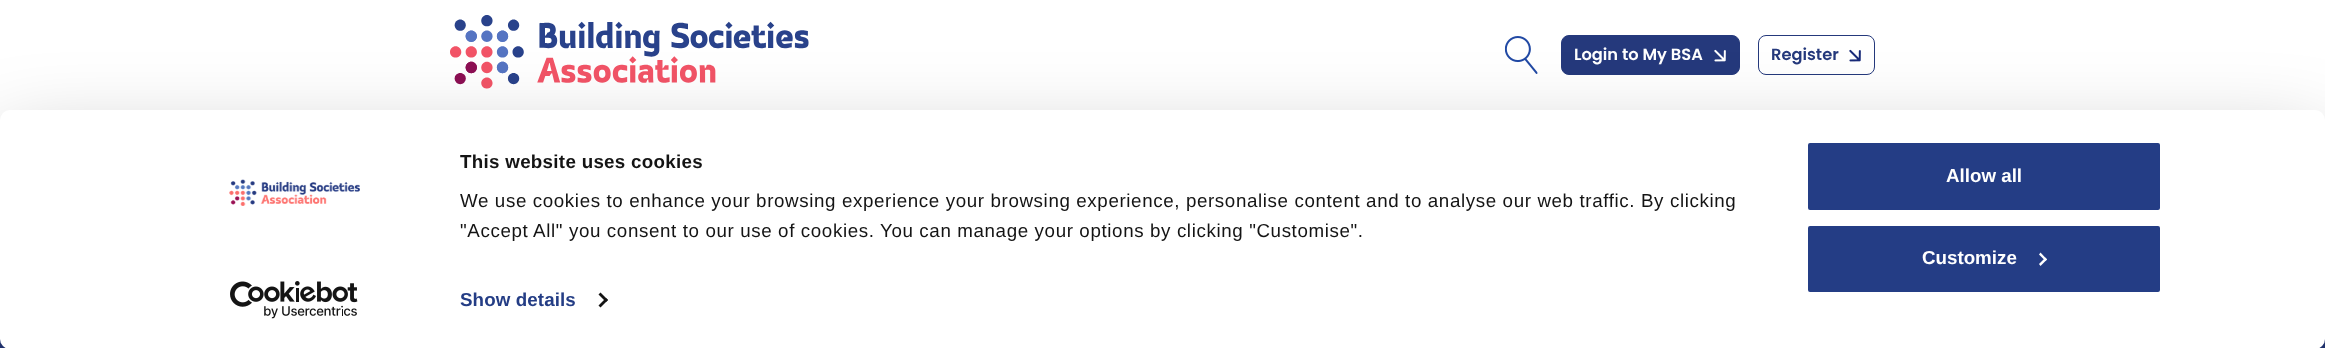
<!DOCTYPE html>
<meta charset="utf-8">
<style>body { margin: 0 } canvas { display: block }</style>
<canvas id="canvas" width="2325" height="348"></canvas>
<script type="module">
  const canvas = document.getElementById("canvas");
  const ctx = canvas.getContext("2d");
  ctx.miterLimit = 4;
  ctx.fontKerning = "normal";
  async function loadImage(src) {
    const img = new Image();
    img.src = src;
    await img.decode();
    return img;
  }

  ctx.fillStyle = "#ffffff";
  ctx.fillRect(0, 0, 2325, 348);
  ctx.drawImage(await loadImage("img1.png"), 450, 15, 359, 74);
  ctx.drawImage(await loadImage("img2.png"), 1504, 36, 34, 38);
  ctx.fillStyle = "#25397c";
  ctx.beginPath();
  ctx.roundRect(1561.5, 35.5, 178, 39, 7.5);
  ctx.fill();
  ctx.strokeStyle = "#25397c";
  ctx.stroke();
  ctx.font = "600 16.25px Poppins";
  ctx.fillStyle = "#ffffff";
  ctx.fillText("Login to My BSA", 1574, 60);
  ctx.drawImage(await loadImage("img3.png"), 1714, 49, 12, 13);
  ctx.beginPath();
  ctx.roundRect(1758.5, 35.5, 116, 39, 7.5);
  ctx.stroke();
  ctx.fillStyle = "#25397c";
  ctx.fillText("Register", 1771, 60);
  ctx.drawImage(await loadImage("img4.png"), 1849, 49, 12, 13);
  ctx.fillRect(0, 339, 2325, 9);
  ctx.fillStyle = "rgba(0, 0, 0, 0.3)";
  ctx.filter = "blur(44px)";
  ctx.beginPath();
  ctx.roundRect(0, 148, 2325, 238, 10);
  ctx.fill();
  ctx.filter = "none";
  ctx.fillStyle = "#ffffff";
  ctx.beginPath();
  ctx.roundRect(0, 110, 2325, 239, 10);
  ctx.fill();
  ctx.drawImage(await loadImage("img5.png"), 229, 179, 131, 27);
  ctx.drawImage(await loadImage("img6.png"), 230, 281, 128, 38);
  ctx.letterSpacing = "0.3px";
  ctx.font = "bold 18.75px Liberation Sans";
  ctx.fillStyle = "#141414";
  ctx.fillText("This website uses cookies", 460, 168);
  ctx.letterSpacing = "0.62px";
  ctx.font = "18.75px Liberation Sans";
  ctx.fillText("We use cookies to enhance your browsing experience your browsing experience, personalise content and to analyse our web traffic. By clicking", 460, 207);
  ctx.fillText("\"Accept All\" you consent to our use of cookies. You can manage your options by clicking \"Customise\".", 460, 237);
  ctx.letterSpacing = "0.1px";
  ctx.font = "bold 18.75px Liberation Sans";
  ctx.fillStyle = "#243d85";
  ctx.fillText("Show details", 460, 306);
  ctx.fillStyle = "#141414";
  ctx.beginPath();
  ctx.moveTo(600.5, 292.5);
  ctx.lineTo(608, 300);
  ctx.lineTo(606, 302);
  ctx.lineTo(598.5, 294.5);
  ctx.closePath();
  ctx.fill();
  ctx.beginPath();
  ctx.moveTo(606, 298);
  ctx.lineTo(608, 300);
  ctx.lineTo(600.5, 307.5);
  ctx.lineTo(598.5, 305.5);
  ctx.closePath();
  ctx.fill();
  ctx.fillStyle = "#243d85";
  ctx.beginPath();
  ctx.roundRect(1806.5, 141.5, 355, 70, 3.5);
  ctx.fill();
  ctx.strokeStyle = "#ffffff";
  ctx.lineWidth = 3;
  ctx.stroke();
  ctx.letterSpacing = "0px";
  ctx.fillStyle = "#ffffff";
  ctx.fillText("Allow all", 1946, 182);
  ctx.fillStyle = "#243d85";
  ctx.beginPath();
  ctx.roundRect(1806.5, 224.5, 355, 69, 3.5);
  ctx.fill();
  ctx.stroke();
  ctx.fillStyle = "#ffffff";
  ctx.fillText("Customize", 1922, 264);
  ctx.beginPath();
  ctx.moveTo(2040.5, 252.5);
  ctx.lineTo(2047, 259.5);
  ctx.lineTo(2045.5, 261);
  ctx.lineTo(2039, 254.5);
  ctx.closePath();
  ctx.fill();
  ctx.beginPath();
  ctx.moveTo(2045.5, 257.5);
  ctx.lineTo(2047, 259.5);
  ctx.lineTo(2040.5, 266);
  ctx.lineTo(2039, 264);
  ctx.closePath();
  ctx.fill();
</script>
